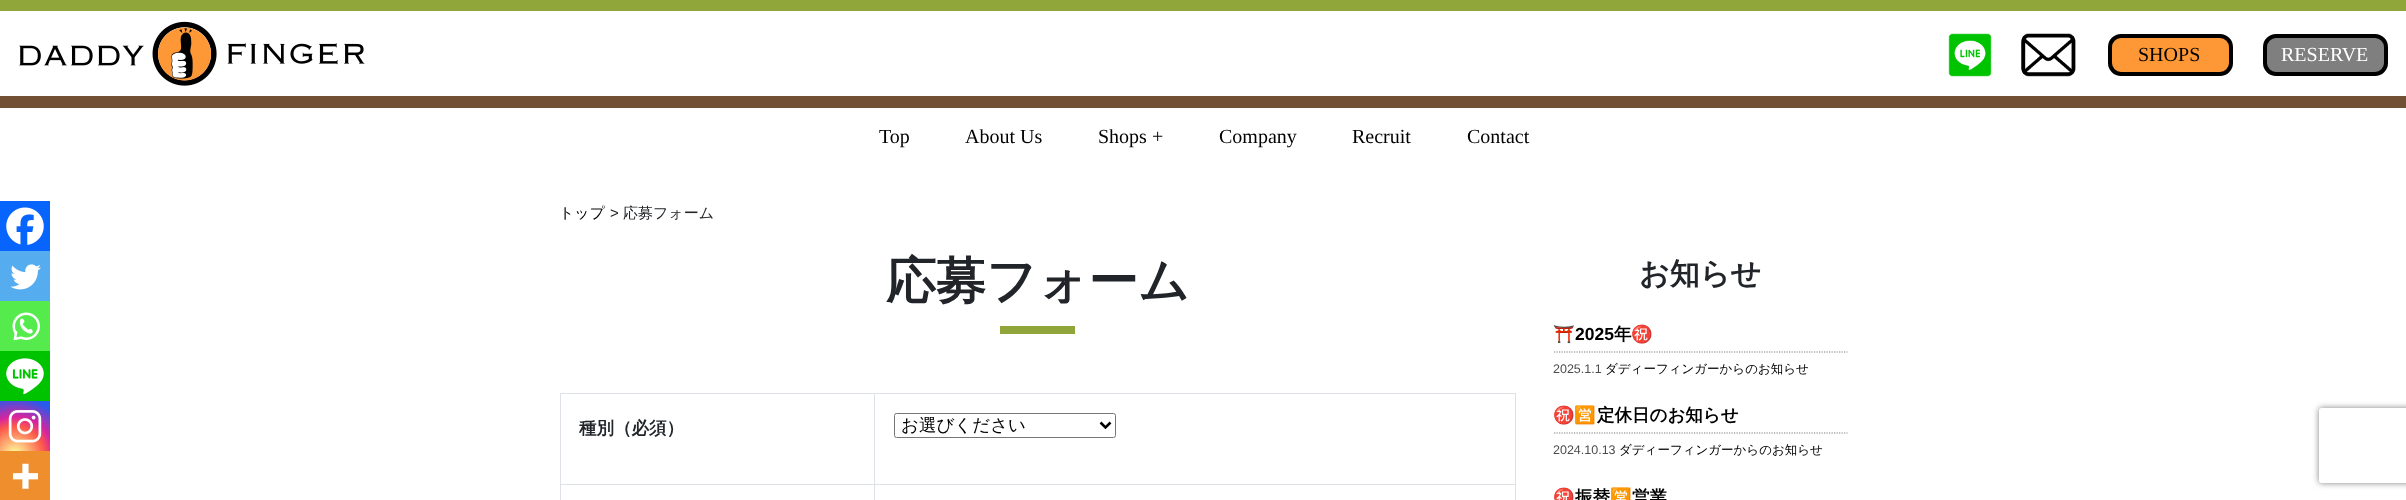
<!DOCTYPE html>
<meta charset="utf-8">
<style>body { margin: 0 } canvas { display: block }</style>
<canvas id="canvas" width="2406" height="500"></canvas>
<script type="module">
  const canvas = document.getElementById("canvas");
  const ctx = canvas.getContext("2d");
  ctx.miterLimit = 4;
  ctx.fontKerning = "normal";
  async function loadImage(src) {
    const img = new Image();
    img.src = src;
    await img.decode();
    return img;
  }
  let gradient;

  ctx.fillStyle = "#ffffff";
  ctx.fillRect(0, 0, 2406, 500);
  ctx.fillStyle = "#90a53a";
  ctx.fillRect(0, 0, 2406, 11);
  ctx.fillStyle = "#715034";
  ctx.fillRect(0, 96, 2406, 12);
  ctx.drawImage(await loadImage("img1.png"), 19, 21, 346, 65);
  ctx.drawImage(await loadImage("img2.png"), 1948, 33, 44, 44);
  ctx.drawImage(await loadImage("img3.png"), 2021, 33, 55, 44);
  ctx.fillStyle = "#fe9836";
  ctx.beginPath();
  ctx.roundRect(2110, 36, 121, 38, 11);
  ctx.fill();
  ctx.strokeStyle = "#000000";
  ctx.lineWidth = 4;
  ctx.stroke();
  ctx.font = "20px Liberation Serif";
  ctx.fillStyle = "#000000";
  ctx.fillText("SHOPS", 2138, 61);
  ctx.fillStyle = "#7f7f7f";
  ctx.beginPath();
  ctx.roundRect(2265, 36, 121, 38, 11);
  ctx.fill();
  ctx.stroke();
  ctx.fillStyle = "#ffffff";
  ctx.fillText("RESERVE", 2281, 61);
  ctx.fillStyle = "#000000";
  ctx.fillText("Top", 879, 143);
  ctx.fillText("About Us", 965, 143);
  ctx.fillText("Shops +", 1098, 143);
  ctx.fillText("Company", 1219, 143);
  ctx.fillText("Recruit", 1352, 143);
  ctx.fillText("Contact", 1467, 143);
  ctx.fillStyle = "#0765fe";
  ctx.fillRect(0, 201, 50, 50);
  ctx.drawImage(await loadImage("img4.png"), 6, 207, 38, 38);
  ctx.fillStyle = "#55acee";
  ctx.fillRect(0, 251, 50, 50);
  ctx.drawImage(await loadImage("img5.png"), 10, 264, 31, 26);
  ctx.fillStyle = "#55eb4c";
  ctx.fillRect(0, 301, 50, 50);
  ctx.drawImage(await loadImage("img6.png"), 12, 312, 28, 29);
  ctx.fillStyle = "#00c300";
  ctx.fillRect(0, 351, 50, 50);
  ctx.drawImage(await loadImage("img7.png"), 6, 358, 38, 37);
  gradient = ctx.createRadialGradient(15, 455, 0, 15, 455, 64);
  gradient.addColorStop(0, "#fdf497");
  gradient.addColorStop(0.05, "#fdf497");
  gradient.addColorStop(0.45, "#fd5949");
  gradient.addColorStop(0.6, "#d6249f");
  gradient.addColorStop(0.9, "#285aeb");
  ctx.fillStyle = gradient;
  ctx.fillRect(0, 401, 50, 50);
  ctx.drawImage(await loadImage("img8.png"), 8, 410, 34, 33);
  ctx.fillStyle = "#ee8e2d";
  ctx.fillRect(0, 451, 50, 49);
  ctx.drawImage(await loadImage("img9.png"), 12, 463, 26, 26);
  ctx.font = "500 15px WenQuanYi Zen Hei";
  ctx.fillStyle = "#000000";
  ctx.fillText("トップ", 559, 218);
  ctx.font = "15px Liberation Sans";
  ctx.fillStyle = "#212529";
  ctx.fillText(">", 610, 218);
  ctx.font = "500 15px WenQuanYi Zen Hei";
  ctx.fillText("応募フォーム", 623, 218);
  ctx.font = "bold 50px WenQuanYi Zen Hei";
  ctx.fillText("応募フォーム", 886, 298);
  ctx.fillStyle = "#90a53a";
  ctx.fillRect(1000, 326, 75, 8);
  ctx.fillStyle = "#dee2e6";
  ctx.fillRect(874, 393, 642, 1);
  ctx.fillRect(874, 484, 642, 1);
  ctx.fillRect(874, 484, 1, 16);
  ctx.fillRect(560, 484, 315, 1);
  ctx.fillRect(874, 393, 1, 92);
  ctx.fillRect(560, 393, 315, 1);
  ctx.fillRect(560, 484, 1, 16);
  ctx.fillRect(560, 393, 1, 92);
  ctx.font = "bold 17.5px WenQuanYi Zen Hei";
  ctx.fillStyle = "#212529";
  ctx.fillText("種別（必須）", 579, 434);
  ctx.fillStyle = "#dee2e6";
  ctx.fillRect(1515, 484, 1, 16);
  ctx.fillRect(1515, 393, 1, 92);
  ctx.beginPath();
  ctx.roundRect(894.5, 413.5, 221, 24, 2);
  ctx.strokeStyle = "#767676";
  ctx.lineWidth = 1;
  ctx.stroke();
  ctx.beginPath();
  ctx.moveTo(1100.5, 422.5);
  ctx.lineTo(1105.5, 427.5);
  ctx.lineTo(1110.5, 422.5);
  ctx.strokeStyle = "#000000";
  ctx.lineWidth = 2.5;
  ctx.stroke();
  ctx.font = "500 17.5px WenQuanYi Zen Hei";
  ctx.fillStyle = "#000000";
  ctx.fillText("お選びください", 901, 431);
  ctx.font = "bold 30px WenQuanYi Zen Hei";
  ctx.fillStyle = "#212529";
  ctx.fillText("お知らせ", 1639, 284);
  ctx.beginPath();
  ctx.moveTo(1554, 352);
  ctx.lineTo(1847.5, 352);
  ctx.strokeStyle = "#808080";
  ctx.lineWidth = 1.2;
  ctx.setLineDash([1.25, 1.25]);
  ctx.stroke();
  ctx.font = "bold 17.5px Noto Color Emoji";
  ctx.fillStyle = "#000000";
  ctx.fillText("⛩️", 1553, 340);
  ctx.font = "bold 17.5px Liberation Sans";
  ctx.fillText("2025", 1575, 340);
  ctx.font = "bold 17.5px WenQuanYi Zen Hei";
  ctx.fillText("年", 1614, 340);
  ctx.font = "bold 17.5px Noto Color Emoji";
  ctx.fillText("㊗️", 1631, 340);
  ctx.font = "12.5px Liberation Sans";
  ctx.fillStyle = "#4d4d4d";
  ctx.fillText("2025.1.1", 1553, 373);
  ctx.font = "500 12.5px WenQuanYi Zen Hei";
  ctx.fillStyle = "#000000";
  ctx.fillText("ダディーフィンガーからのお知らせ", 1605, 373);
  ctx.beginPath();
  ctx.moveTo(1554, 433);
  ctx.lineTo(1847.5, 433);
  ctx.stroke();
  ctx.font = "bold 17.5px Noto Color Emoji";
  ctx.fillText("㊗️🈺", 1553, 421);
  ctx.font = "bold 17.5px WenQuanYi Zen Hei";
  ctx.fillText("定休日のお知らせ", 1597, 421);
  ctx.font = "12.5px Liberation Sans";
  ctx.fillStyle = "#4d4d4d";
  ctx.fillText("2024.10.13", 1553, 454);
  ctx.font = "500 12.5px WenQuanYi Zen Hei";
  ctx.fillStyle = "#000000";
  ctx.fillText("ダディーフィンガーからのお知らせ", 1619, 454);
  ctx.font = "bold 17.5px Noto Color Emoji";
  ctx.fillText("㊗️", 1553, 503);
  ctx.font = "bold 17.5px WenQuanYi Zen Hei";
  ctx.fillText("振替", 1575, 503);
  ctx.font = "bold 17.5px Noto Color Emoji";
  ctx.fillText("🈺", 1610, 503);
  ctx.font = "bold 17.5px WenQuanYi Zen Hei";
  ctx.fillText("営業", 1632, 503);
  ctx.save();
  ctx.beginPath();
  ctx.moveTo(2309, 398);
  ctx.lineTo(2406, 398);
  ctx.lineTo(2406, 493);
  ctx.lineTo(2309, 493);
  ctx.closePath();
  ctx.moveTo(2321.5, 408);
  ctx.lineTo(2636.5, 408);
  ctx.bezierCurveTo(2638, 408, 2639, 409, 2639, 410.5);
  ctx.lineTo(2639, 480.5);
  ctx.bezierCurveTo(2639, 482, 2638, 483, 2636.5, 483);
  ctx.lineTo(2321.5, 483);
  ctx.bezierCurveTo(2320, 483, 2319, 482, 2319, 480.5);
  ctx.lineTo(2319, 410.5);
  ctx.bezierCurveTo(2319, 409, 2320, 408, 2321.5, 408);
  ctx.closePath();
  ctx.clip("evenodd");
  ctx.fillStyle = "#808080";
  ctx.filter = "blur(3px)";
  ctx.beginPath();
  ctx.roundRect(2319, 408, 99, 75, 2.5);
  ctx.fill();
  ctx.filter = "none";
  ctx.restore();
</script>
